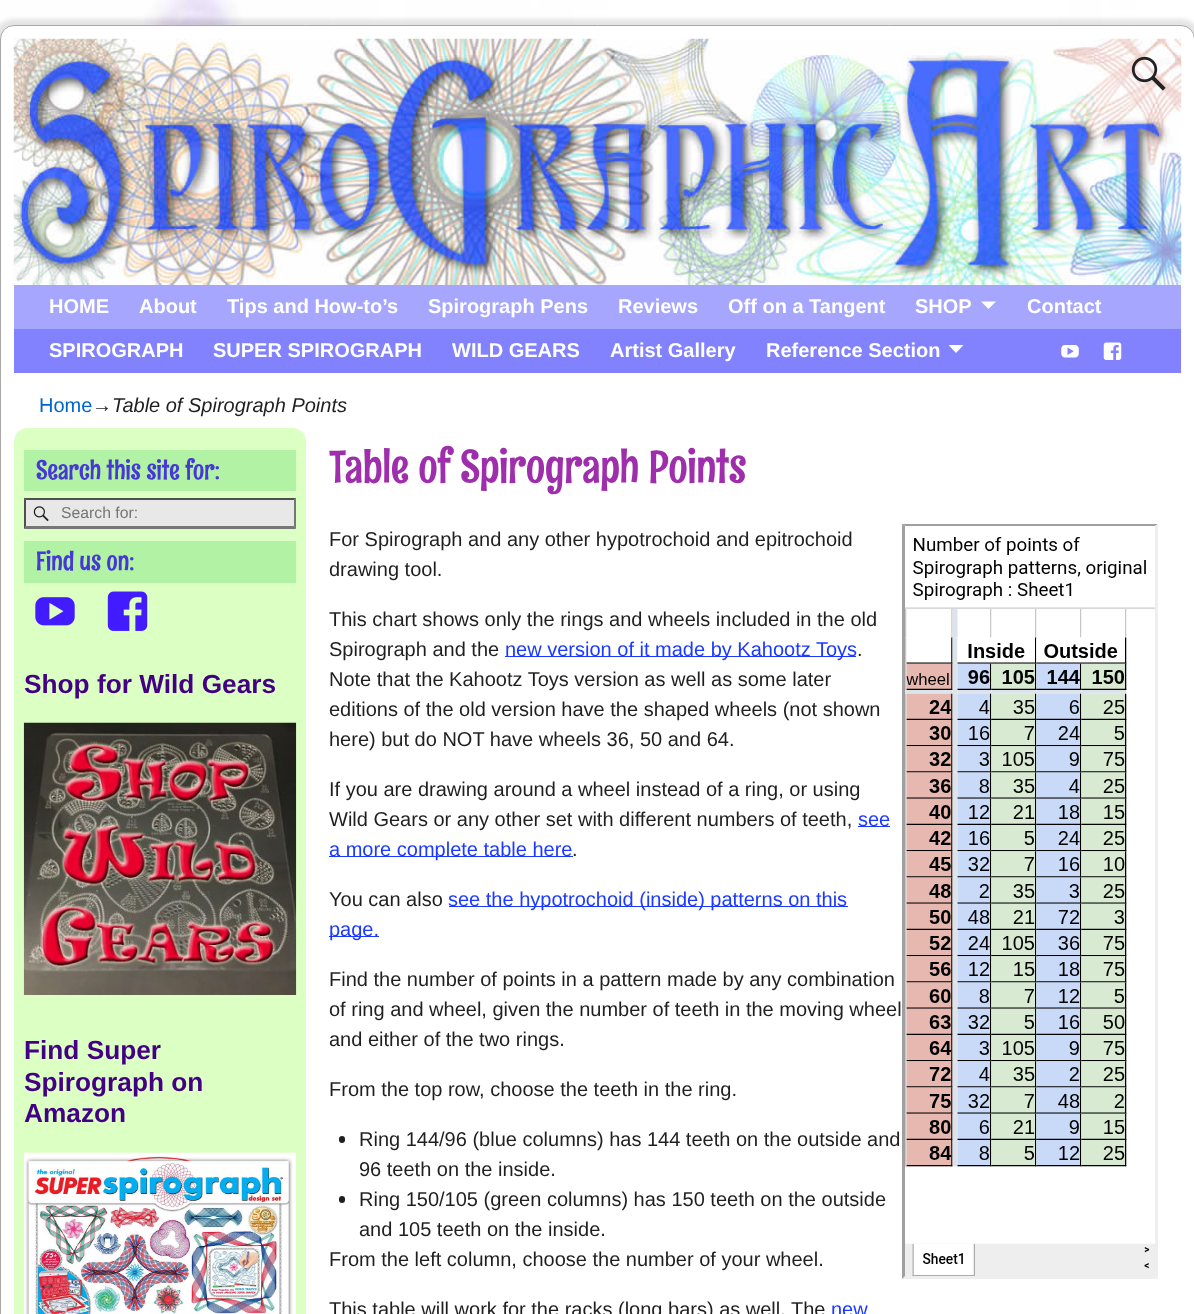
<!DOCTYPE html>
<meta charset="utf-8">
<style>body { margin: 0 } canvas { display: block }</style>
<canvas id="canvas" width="1194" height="1314"></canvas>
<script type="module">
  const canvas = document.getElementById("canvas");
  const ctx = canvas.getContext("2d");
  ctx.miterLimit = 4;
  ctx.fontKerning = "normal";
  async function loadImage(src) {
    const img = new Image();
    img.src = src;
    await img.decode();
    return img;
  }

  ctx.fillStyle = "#ffffff";
  ctx.fillRect(0, 0, 1194, 1314);
  ctx.drawImage(await loadImage("img1.png"), 0, 0, 1194, 39);
  ctx.fillStyle = "rgba(0, 0, 0, 0.1)";
  ctx.filter = "blur(2px)";
  ctx.beginPath();
  ctx.roundRect(-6, 19, 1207, 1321, 20);
  ctx.fill();
  ctx.filter = "none";
  ctx.fillStyle = "#ffffff";
  ctx.beginPath();
  ctx.roundRect(0.5, 25.5, 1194, 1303, 13.5);
  ctx.fill();
  ctx.strokeStyle = "#a8a8a8";
  ctx.stroke();
  ctx.drawImage(await loadImage("img2.png"), 13, 38, 1169, 247);
  ctx.drawImage(await loadImage("img3.png"), 1131, 56, 35, 35);
  ctx.fillStyle = "#a6a6ff";
  ctx.fillRect(14, 285, 1167, 44);
  ctx.font = "bold 20px Liberation Sans";
  ctx.fillStyle = "#ffffff";
  ctx.fillText("HOME", 49, 313);
  ctx.fillText("About", 139, 313);
  ctx.fillText("Tips and How-to’s", 227, 313);
  ctx.fillText("Spirograph Pens", 428, 313);
  ctx.fillText("Reviews", 618, 313);
  ctx.fillText("Off on a Tangent", 728, 313);
  ctx.fillText("SHOP", 915, 313);
  ctx.beginPath();
  ctx.moveTo(981, 301.5);
  ctx.lineTo(996, 301.5);
  ctx.lineTo(988.5, 309);
  ctx.closePath();
  ctx.fill();
  ctx.fillText("Contact", 1027, 313);
  ctx.fillStyle = "#8282ff";
  ctx.fillRect(14, 329, 1167, 44);
  ctx.fillStyle = "#ffffff";
  ctx.fillText("SPIROGRAPH", 49, 357);
  ctx.fillText("SUPER SPIROGRAPH", 213, 357);
  ctx.fillText("WILD GEARS", 452, 357);
  ctx.fillText("Artist Gallery", 610, 357);
  ctx.fillText("Reference Section", 766, 357);
  ctx.beginPath();
  ctx.moveTo(948.5, 345);
  ctx.lineTo(963.5, 345);
  ctx.lineTo(956, 353);
  ctx.closePath();
  ctx.fill();
  ctx.drawImage(await loadImage("img4.png"), 1061, 345, 18, 13);
  ctx.drawImage(await loadImage("img5.png"), 1103, 342, 19, 18);
  ctx.font = "20px Liberation Sans";
  ctx.fillStyle = "#0066cc";
  ctx.fillText("Home", 39, 412);
  ctx.fillStyle = "#1f1f1f";
  ctx.fillText("→", 92, 412);
  ctx.font = "italic 20px Liberation Sans";
  ctx.fillText("Table of Spirograph Points", 112, 412);
  ctx.fillStyle = "#dcffc4";
  ctx.beginPath();
  ctx.roundRect(14, 428, 292, 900, 14);
  ctx.fill();
  ctx.fillStyle = "#b1f2a5";
  ctx.fillRect(24, 450, 272, 41);
  ctx.font = "26.25px Rum Raisin";
  ctx.fillStyle = "#4738d6";
  ctx.fillText("Search this site for:", 36, 479);
  ctx.fillStyle = "#e8e8e8";
  ctx.fillRect(24, 498, 272, 31);
  ctx.drawImage(await loadImage("img6.png"), 33, 506, 16, 16);
  ctx.fillStyle = "#4f4f4f";
  ctx.beginPath();
  ctx.moveTo(24, 498);
  ctx.lineTo(296, 498);
  ctx.lineTo(294, 500);
  ctx.lineTo(26, 500);
  ctx.closePath();
  ctx.fill();
  ctx.fillStyle = "#767676";
  ctx.beginPath();
  ctx.moveTo(296, 497.5);
  ctx.lineTo(296, 529);
  ctx.lineTo(294, 526);
  ctx.lineTo(294, 500);
  ctx.closePath();
  ctx.fill();
  ctx.beginPath();
  ctx.moveTo(296, 529);
  ctx.lineTo(24, 529);
  ctx.lineTo(26, 526);
  ctx.lineTo(294, 526);
  ctx.closePath();
  ctx.fill();
  ctx.fillStyle = "#4f4f4f";
  ctx.beginPath();
  ctx.moveTo(24, 529);
  ctx.lineTo(24, 497.5);
  ctx.lineTo(26, 500);
  ctx.lineTo(26, 526);
  ctx.closePath();
  ctx.fill();
  ctx.font = "15.75px Liberation Sans";
  ctx.fillStyle = "#757575";
  ctx.fillText("Search for:", 61, 518);
  ctx.fillStyle = "#b1f2a5";
  ctx.fillRect(24, 541, 272, 42);
  ctx.font = "26.25px Rum Raisin";
  ctx.fillStyle = "#4738d6";
  ctx.fillText("Find us on:", 36, 570);
  ctx.drawImage(await loadImage("img7.png"), 35, 597, 40, 29);
  ctx.drawImage(await loadImage("img8.png"), 107, 591, 41, 40);
  ctx.font = "bold 26.25px Liberation Sans";
  ctx.fillStyle = "#440084";
  ctx.fillText("Shop for Wild Gears", 24, 693);
  ctx.drawImage(await loadImage("img9.png"), 23, 722, 274, 273);
  ctx.fillText("Find Super", 24, 1059);
  ctx.fillText("Spirograph on", 24, 1091);
  ctx.fillText("Amazon", 24, 1122);
  ctx.drawImage(await loadImage("img10.png"), 24, 1152, 272, 162);
  ctx.font = "45px Rum Raisin";
  ctx.fillStyle = "#9e2eab";
  ctx.fillText("Table of Spirograph Points", 329, 482);
  ctx.font = "20px Liberation Sans";
  ctx.fillStyle = "#1f1f1f";
  ctx.fillText("For Spirograph and any other hypotrochoid and epitrochoid", 329, 546);
  ctx.fillText("drawing tool.", 329, 576);
  ctx.fillStyle = "#9f9f9f";
  ctx.beginPath();
  ctx.moveTo(902, 524);
  ctx.lineTo(1158, 524);
  ctx.lineTo(1155, 526);
  ctx.lineTo(905, 526);
  ctx.closePath();
  ctx.fill();
  ctx.fillStyle = "#eeeeee";
  ctx.beginPath();
  ctx.moveTo(1158, 524);
  ctx.lineTo(1158, 1279);
  ctx.lineTo(1155, 1276);
  ctx.lineTo(1155, 526);
  ctx.closePath();
  ctx.fill();
  ctx.beginPath();
  ctx.moveTo(1158, 1279);
  ctx.lineTo(902, 1279);
  ctx.lineTo(905, 1276);
  ctx.lineTo(1155, 1276);
  ctx.closePath();
  ctx.fill();
  ctx.fillStyle = "#9f9f9f";
  ctx.beginPath();
  ctx.moveTo(902, 1279);
  ctx.lineTo(902, 524);
  ctx.lineTo(905, 526);
  ctx.lineTo(905, 1276);
  ctx.closePath();
  ctx.fill();
  ctx.drawImage(await loadImage("img11.png"), 905, 537, 250, 739);
  ctx.fillStyle = "#1f1f1f";
  ctx.fillText("This chart shows only the rings and wheels included in the old", 329, 626);
  ctx.fillText("Spirograph and the", 329, 656);
  ctx.fillStyle = "#1c3aff";
  ctx.fillRect(505, 656, 351, 1);
  ctx.fillText("new version of it made by Kahootz Toys", 505, 656);
  ctx.fillStyle = "#1f1f1f";
  ctx.fillText(".", 857, 656);
  ctx.fillText("Note that the Kahootz Toys version as well as some later", 329, 686);
  ctx.fillText("editions of the old version have the shaped wheels (not shown", 329, 716);
  ctx.fillText("here) but do NOT have wheels 36, 50 and 64.", 329, 746);
  ctx.fillText("If you are drawing around a wheel instead of a ring, or using", 329, 796);
  ctx.fillText("Wild Gears or any other set with different numbers of teeth,", 329, 826);
  ctx.fillStyle = "#1c3aff";
  ctx.fillRect(858, 826, 32, 1);
  ctx.fillText("see", 858, 826);
  ctx.fillRect(329, 856, 244, 1);
  ctx.fillText("a more complete table here", 329, 856);
  ctx.fillStyle = "#1f1f1f";
  ctx.fillText(".", 572, 856);
  ctx.fillText("You can also", 329, 906);
  ctx.fillStyle = "#1c3aff";
  ctx.fillRect(449, 906, 399, 1);
  ctx.fillText("see the hypotrochoid (inside) patterns on this", 448, 906);
  ctx.fillRect(329, 936, 50, 1);
  ctx.fillText("page.", 329, 936);
  ctx.fillStyle = "#1f1f1f";
  ctx.fillText("Find the number of points in a pattern made by any combination", 329, 986);
  ctx.fillText("of ring and wheel, given the number of teeth in the moving wheel", 329, 1016);
  ctx.fillText("and either of the two rings.", 329, 1046);
  ctx.fillText("From the top row, choose the teeth in the ring.", 329, 1096);
  ctx.beginPath();
  ctx.roundRect(339, 1136, 6, 7, 3);
  ctx.fill();
  ctx.fillText("Ring 144/96 (blue columns) has 144 teeth on the outside and", 359, 1146);
  ctx.fillText("96 teeth on the inside.", 359, 1176);
  ctx.beginPath();
  ctx.roundRect(339, 1196, 6, 7, 3);
  ctx.fill();
  ctx.fillText("Ring 150/105 (green columns) has 150 teeth on the outside", 359, 1206);
  ctx.fillText("and 105 teeth on the inside.", 359, 1236);
  ctx.fillText("From the left column, choose the number of your wheel.", 329, 1266);
  ctx.fillText("This table will work for the racks (long bars) as well. The", 329, 1316);
  ctx.fillStyle = "#1c3aff";
  ctx.fillText("new", 831, 1316);
</script>
